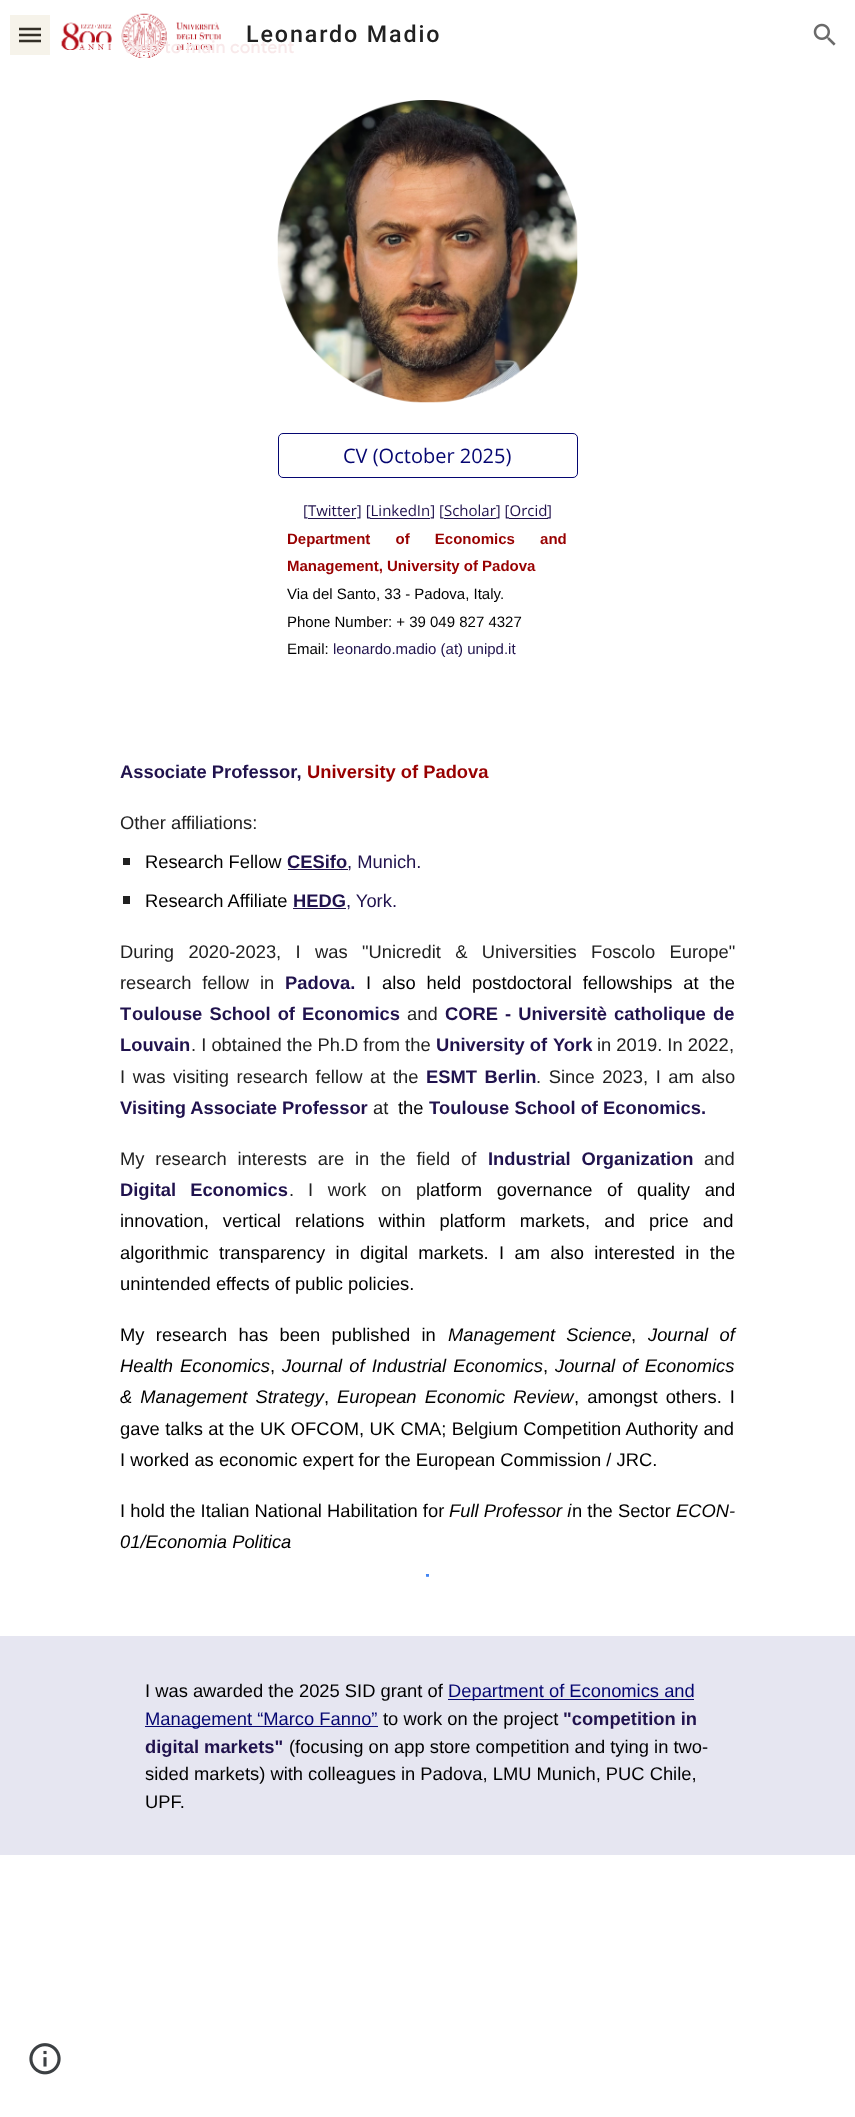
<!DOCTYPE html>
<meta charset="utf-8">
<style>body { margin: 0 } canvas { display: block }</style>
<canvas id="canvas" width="855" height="2117"></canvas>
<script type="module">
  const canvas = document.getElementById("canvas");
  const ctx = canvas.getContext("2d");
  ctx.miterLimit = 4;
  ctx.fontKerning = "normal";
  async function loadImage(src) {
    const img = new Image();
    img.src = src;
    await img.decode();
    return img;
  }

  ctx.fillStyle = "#ffffff";
  ctx.fillRect(0, 0, 855, 2117);
  ctx.fillStyle = "#f6f3ea";
  ctx.fillRect(10, 15, 40, 40);
  ctx.beginPath();
  ctx.moveTo(19, 29);
  ctx.lineTo(41, 29);
  ctx.moveTo(19, 35);
  ctx.lineTo(41, 35);
  ctx.moveTo(19, 41);
  ctx.lineTo(41, 41);
  ctx.strokeStyle = "#332f27";
  ctx.lineWidth = 2.5;
  ctx.stroke();
  ctx.drawImage(await loadImage("img1.png"), 61, 13, 160, 45);
  ctx.letterSpacing = "1.9px";
  ctx.font = "500 23.25px Roboto";
  ctx.fillStyle = "#212121";
  ctx.fillText("Leonardo Madio", 246, 42);
  ctx.drawImage(await loadImage("img2.png"), 813, 23, 23, 23);
  ctx.drawImage(await loadImage("img3.png"), 277, 100, 301, 303);
  ctx.beginPath();
  ctx.roundRect(278.5, 433.5, 299, 44, 4.5);
  ctx.strokeStyle = "#050671";
  ctx.lineWidth = 1;
  ctx.stroke();
  ctx.letterSpacing = "0px";
  ctx.font = "20px Open Sans";
  ctx.fillStyle = "#050671";
  ctx.fillText("CV (October 2025)", 343, 463);
  ctx.font = "15px Open Sans";
  ctx.fillStyle = "#20124d";
  ctx.fillText("[Twitter] [LinkedIn] [Scholar] [Orcid", 303, 516);
  ctx.fillRect(509, 518, 39, 1);
  ctx.fillText("]", 547, 516);
  ctx.fillRect(308, 518, 48, 1);
  ctx.fillRect(370, 518, 60, 1);
  ctx.fillRect(444, 518, 52, 1);
  ctx.wordSpacing = "21px";
  ctx.font = "bold 15px Liberation Sans";
  ctx.fillStyle = "#980000";
  ctx.fillText("Department of Economics and", 287, 544);
  ctx.wordSpacing = "0px";
  ctx.fillText("Management, University of Padova", 287, 571);
  ctx.font = "15px Liberation Sans";
  ctx.fillStyle = "#000000";
  ctx.fillText("Via del Santo, 33 - Padova, Italy.", 287, 599);
  ctx.fillText("Phone Number: + 39 049 827 4327", 287, 627);
  ctx.fillText("Email:", 287, 654);
  ctx.fillStyle = "#20124d";
  ctx.fillText("leonardo.madio (at) unipd.it", 333, 654);
  ctx.font = "bold 18.35px Liberation Sans";
  ctx.fillText("Associate Professor,", 120, 778);
  ctx.fillStyle = "#980000";
  ctx.fillText("University of Padova", 307, 778);
  ctx.font = "18.35px Liberation Sans";
  ctx.fillStyle = "#212121";
  ctx.fillText("Other affiliations:", 120, 829);
  ctx.fillRect(123, 858, 7, 7);
  ctx.fillStyle = "#000000";
  ctx.fillText("Research Fellow", 145, 868);
  ctx.font = "bold 18.35px Liberation Sans";
  ctx.fillStyle = "#20124d";
  ctx.fillText("CESifo", 287, 868);
  ctx.fillRect(288, 869, 60, 1);
  ctx.font = "18.35px Liberation Sans";
  ctx.fillText(", Munich.", 347, 868);
  ctx.fillStyle = "#212121";
  ctx.fillRect(123, 896, 7, 8);
  ctx.fillStyle = "#000000";
  ctx.fillText("Research Affiliate", 145, 907);
  ctx.font = "bold 18.35px Liberation Sans";
  ctx.fillStyle = "#20124d";
  ctx.fillText("HEDG", 293, 907);
  ctx.fillRect(293, 908, 53, 1);
  ctx.font = "18.35px Liberation Sans";
  ctx.fillText(", York.", 346, 907);
  ctx.wordSpacing = "9.25px";
  ctx.fillStyle = "#212121";
  ctx.fillText("During 2020-2023, I was \"Unicredit & Universities Foscolo Europe\"", 120, 958);
  ctx.wordSpacing = "5.75px";
  ctx.fillText("research fellow in", 120, 989);
  ctx.wordSpacing = "0px";
  ctx.font = "bold 18.35px Liberation Sans";
  ctx.fillStyle = "#20124d";
  ctx.fillText("Padova.", 285, 989);
  ctx.wordSpacing = "5.75px";
  ctx.font = "18.35px Liberation Sans";
  ctx.fillStyle = "#000000";
  ctx.fillText("I also held postdoctoral fellowships at the", 366, 989);
  ctx.wordSpacing = "0px";
  ctx.font = "bold 18.35px Liberation Sans";
  ctx.fillStyle = "#20124d";
  ctx.fillText("T", 120, 1020);
  ctx.wordSpacing = "2px";
  ctx.fillText("oulouse School of Economics", 132, 1020);
  ctx.wordSpacing = "0px";
  ctx.font = "18.35px Liberation Sans";
  ctx.fillStyle = "#212121";
  ctx.fillText("and", 407, 1020);
  ctx.wordSpacing = "2px";
  ctx.font = "bold 18.35px Liberation Sans";
  ctx.fillStyle = "#20124d";
  ctx.fillText("CORE - Universitè catholique de", 445, 1020);
  ctx.wordSpacing = "0px";
  ctx.fillText("Louvain", 120, 1051);
  ctx.font = "18.35px Liberation Sans";
  ctx.fillStyle = "#212121";
  ctx.fillText(". I obtained the Ph.D from the", 191, 1051);
  ctx.font = "bold 18.35px Liberation Sans";
  ctx.fillStyle = "#20124d";
  ctx.fillText("University of", 436, 1051);
  ctx.fillText("York", 553, 1051);
  ctx.font = "18.35px Liberation Sans";
  ctx.fillStyle = "#212121";
  ctx.fillText("in 2019. In 2022", 597, 1051);
  ctx.fillText(",", 729, 1051);
  ctx.wordSpacing = "2.5px";
  ctx.fillText("I was visiting research fellow at the", 120, 1083);
  ctx.font = "bold 18.35px Liberation Sans";
  ctx.fillStyle = "#20124d";
  ctx.fillText("ESMT Berlin", 426, 1083);
  ctx.font = "18.35px Liberation Sans";
  ctx.fillStyle = "#212121";
  ctx.fillText(". Since 2023, I am also", 536, 1083);
  ctx.wordSpacing = "0px";
  ctx.font = "bold 18.35px Liberation Sans";
  ctx.fillStyle = "#20124d";
  ctx.fillText("Visiting Associate Professor", 120, 1114);
  ctx.font = "18.35px Liberation Sans";
  ctx.fillStyle = "#212121";
  ctx.fillText("at", 373, 1114);
  ctx.fillStyle = "#000000";
  ctx.fillText("the", 398, 1114);
  ctx.font = "bold 18.35px Liberation Sans";
  ctx.fillStyle = "#20124d";
  ctx.fillText("T", 429, 1114);
  ctx.fillText("oulouse School of Economics.", 439, 1114);
  ctx.wordSpacing = "5.75px";
  ctx.font = "18.35px Liberation Sans";
  ctx.fillStyle = "#212121";
  ctx.fillText("My research interests are in the field of", 120, 1165);
  ctx.font = "bold 18.35px Liberation Sans";
  ctx.fillStyle = "#20124d";
  ctx.fillText("Industrial Organization", 488, 1165);
  ctx.wordSpacing = "0px";
  ctx.font = "18.35px Liberation Sans";
  ctx.fillStyle = "#212121";
  ctx.fillText("and", 704, 1165);
  ctx.wordSpacing = "9px";
  ctx.font = "bold 18.35px Liberation Sans";
  ctx.fillStyle = "#20124d";
  ctx.fillText("Digital Economics", 120, 1196);
  ctx.wordSpacing = "0px";
  ctx.font = "18.35px Liberation Sans";
  ctx.fillStyle = "#212121";
  ctx.fillText(".", 289, 1196);
  ctx.wordSpacing = "9.5px";
  ctx.fillText("I work on p", 308, 1196);
  ctx.fillStyle = "#000000";
  ctx.fillText("latform governance of quality and", 426, 1196);
  ctx.wordSpacing = "9px";
  ctx.fillText("innovation, vertical relations within platform markets, and price and", 120, 1227);
  ctx.wordSpacing = "5.25px";
  ctx.fillText("algorithmic transparency in digital markets. I am also interested in the", 120, 1259);
  ctx.wordSpacing = "0px";
  ctx.fillText("unintended effects of public policies.", 120, 1290);
  ctx.wordSpacing = "6.25px";
  ctx.fillText("My research has been published in", 120, 1341);
  ctx.wordSpacing = "6px";
  ctx.font = "italic 18.35px Liberation Sans";
  ctx.fillText("Management Science", 448, 1341);
  ctx.wordSpacing = "0px";
  ctx.font = "18.35px Liberation Sans";
  ctx.fillText(",", 631, 1341);
  ctx.wordSpacing = "6.25px";
  ctx.font = "italic 18.35px Liberation Sans";
  ctx.fillText("Journal of", 648, 1341);
  ctx.wordSpacing = "2px";
  ctx.fillText("Health Economics", 120, 1372);
  ctx.wordSpacing = "0px";
  ctx.font = "18.35px Liberation Sans";
  ctx.fillText(",", 270, 1372);
  ctx.wordSpacing = "2px";
  ctx.font = "italic 18.35px Liberation Sans";
  ctx.fillText("Journal of Industrial Economics", 282, 1372);
  ctx.wordSpacing = "0px";
  ctx.font = "18.35px Liberation Sans";
  ctx.fillText(",", 543, 1372);
  ctx.wordSpacing = "2px";
  ctx.font = "italic 18.35px Liberation Sans";
  ctx.fillText("Journal of Economics", 555, 1372);
  ctx.wordSpacing = "3px";
  ctx.fillText("& Management Strategy", 120, 1403);
  ctx.wordSpacing = "0px";
  ctx.font = "18.35px Liberation Sans";
  ctx.fillText(",", 324, 1403);
  ctx.wordSpacing = "3px";
  ctx.font = "italic 18.35px Liberation Sans";
  ctx.fillText("European Economic Review", 337, 1403);
  ctx.font = "18.35px Liberation Sans";
  ctx.fillText(", amongst others. I", 574, 1403);
  ctx.wordSpacing = "0.3px";
  ctx.fillText("gave talks at the UK OFCOM, UK CMA; Belgium Competition Authority and", 120, 1435);
  ctx.wordSpacing = "0px";
  ctx.fillText("I worked as economic expert for the European Commission / JRC.", 120, 1466);
  ctx.fillText("I hold the Italian National Habilitation for", 120, 1517);
  ctx.font = "italic 18.35px Liberation Sans";
  ctx.fillText("Full Professor i", 449, 1517);
  ctx.font = "18.35px Liberation Sans";
  ctx.fillText("n the Sector", 572, 1517);
  ctx.font = "italic 18.35px Liberation Sans";
  ctx.fillText("ECON-", 676, 1517);
  ctx.fillText("01/Economia Politica", 120, 1548);
  ctx.save();
  ctx.beginPath();
  ctx.rect(410, 1574, 18, 32);
  ctx.clip();
  ctx.beginPath();
  ctx.moveTo(426, 1574.5);
  ctx.bezierCurveTo(429, 1574, 432.5, 1575, 435, 1576.5);
  ctx.bezierCurveTo(448.5, 1583.5, 444, 1604.5, 429, 1605.5);
  ctx.strokeStyle = "#4486f4";
  ctx.lineWidth = 3.7;
  ctx.stroke();
  ctx.restore();
  ctx.save();
  ctx.beginPath();
  ctx.rect(426, 1574, 3, 32);
  ctx.clip();
  ctx.beginPath();
  ctx.moveTo(416.5, 1601);
  ctx.bezierCurveTo(413, 1597.5, 411, 1592, 412, 1587);
  ctx.bezierCurveTo(416, 1568.5, 443, 1571.5, 443, 1590);
  ctx.bezierCurveTo(443, 1594, 441.5, 1598, 438.5, 1601);
  ctx.strokeStyle = "#4486f4";
  ctx.lineWidth = 3.8;
  ctx.stroke();
  ctx.restore();
  ctx.save();
  ctx.beginPath();
  ctx.rect(428, 1574, 17, 32);
  ctx.clip();
  ctx.beginPath();
  ctx.moveTo(426, 1605.5);
  ctx.bezierCurveTo(423, 1605.5, 420, 1604, 417.5, 1602.5);
  ctx.bezierCurveTo(406, 1592.5, 413.5, 1573, 429, 1574.5);
  ctx.strokeStyle = "#4486f4";
  ctx.lineWidth = 3.7;
  ctx.stroke();
  ctx.restore();
  ctx.save();
  ctx.beginPath();
  ctx.rect(410, 1574, 18, 32);
  ctx.clip();
  ctx.beginPath();
  ctx.moveTo(426, 1574.5);
  ctx.bezierCurveTo(429, 1574, 432.5, 1575, 435, 1576.5);
  ctx.bezierCurveTo(448.5, 1583.5, 444, 1604.5, 429, 1605.5);
  ctx.strokeStyle = "#4486f4";
  ctx.lineWidth = 3.7;
  ctx.stroke();
  ctx.restore();
  ctx.save();
  ctx.beginPath();
  ctx.rect(428, 1574, 17, 32);
  ctx.clip();
  ctx.beginPath();
  ctx.moveTo(426, 1605.5);
  ctx.bezierCurveTo(423, 1605.5, 420, 1604, 417.5, 1602.5);
  ctx.bezierCurveTo(406, 1592.5, 413.5, 1573, 429, 1574.5);
  ctx.strokeStyle = "#4486f4";
  ctx.lineWidth = 3.7;
  ctx.stroke();
  ctx.restore();
  ctx.save();
  ctx.beginPath();
  ctx.rect(410, 1574, 18, 32);
  ctx.clip();
  ctx.beginPath();
  ctx.moveTo(426, 1574.5);
  ctx.bezierCurveTo(429, 1574, 432.5, 1575, 435, 1576.5);
  ctx.bezierCurveTo(448.5, 1583.5, 444, 1604.5, 429, 1605.5);
  ctx.strokeStyle = "#4486f4";
  ctx.lineWidth = 3.7;
  ctx.stroke();
  ctx.restore();
  ctx.save();
  ctx.beginPath();
  ctx.rect(428, 1574, 17, 32);
  ctx.clip();
  ctx.beginPath();
  ctx.moveTo(426, 1605.5);
  ctx.bezierCurveTo(423, 1605.5, 420, 1604, 417.5, 1602.5);
  ctx.bezierCurveTo(406, 1592.5, 413.5, 1573, 429, 1574.5);
  ctx.strokeStyle = "#4486f4";
  ctx.lineWidth = 3.7;
  ctx.stroke();
  ctx.restore();
  ctx.save();
  ctx.beginPath();
  ctx.rect(410, 1574, 18, 32);
  ctx.clip();
  ctx.beginPath();
  ctx.moveTo(426, 1574.5);
  ctx.bezierCurveTo(429, 1574, 432.5, 1575, 435, 1576.5);
  ctx.bezierCurveTo(448.5, 1583.5, 444, 1604.5, 429, 1605.5);
  ctx.strokeStyle = "#4486f4";
  ctx.lineWidth = 3.7;
  ctx.stroke();
  ctx.restore();
  ctx.save();
  ctx.beginPath();
  ctx.rect(428, 1574, 17, 32);
  ctx.clip();
  ctx.beginPath();
  ctx.moveTo(426, 1605.5);
  ctx.bezierCurveTo(423, 1605.5, 420, 1604, 417.5, 1602.5);
  ctx.bezierCurveTo(406, 1592.5, 413.5, 1573, 429, 1574.5);
  ctx.strokeStyle = "#4486f4";
  ctx.lineWidth = 3.7;
  ctx.stroke();
  ctx.restore();
  ctx.fillStyle = "#e6e6f1";
  ctx.fillRect(0, 1636, 855, 219);
  ctx.font = "18.35px Liberation Sans";
  ctx.fillStyle = "#000000";
  ctx.fillText("I was awarded the 2025 SID grant of", 145, 1697);
  ctx.fillStyle = "#050671";
  ctx.fillRect(448, 1699, 246, 1);
  ctx.fillText("Department of Economics and", 448, 1697);
  ctx.fillRect(145, 1726, 233, 1);
  ctx.fillText("Management “Marco Fanno”", 145, 1725);
  ctx.fillStyle = "#000000";
  ctx.fillText("to work on the project", 383, 1725);
  ctx.font = "bold 18.35px Liberation Sans";
  ctx.fillStyle = "#20124d";
  ctx.fillText("\"competition in", 563, 1725);
  ctx.fillText("digital markets\"", 145, 1753);
  ctx.font = "18.35px Liberation Sans";
  ctx.fillStyle = "#000000";
  ctx.fillText("(focusing on app store competition and tying in two-", 289, 1753);
  ctx.fillText("sided markets) with colleagues in Padova, LMU Munich, PUC Chile,", 145, 1780);
  ctx.fillText("UPF.", 145, 1808);
  ctx.drawImage(await loadImage("img4.png"), 29, 2043, 32, 32);
  ctx.letterSpacing = "0.2px";
  ctx.font = "500 17.5px Google Sans";
  ctx.fillStyle = "#f8e9ea";
  ctx.fillText("Skip to main content", 125, 53);
</script>
